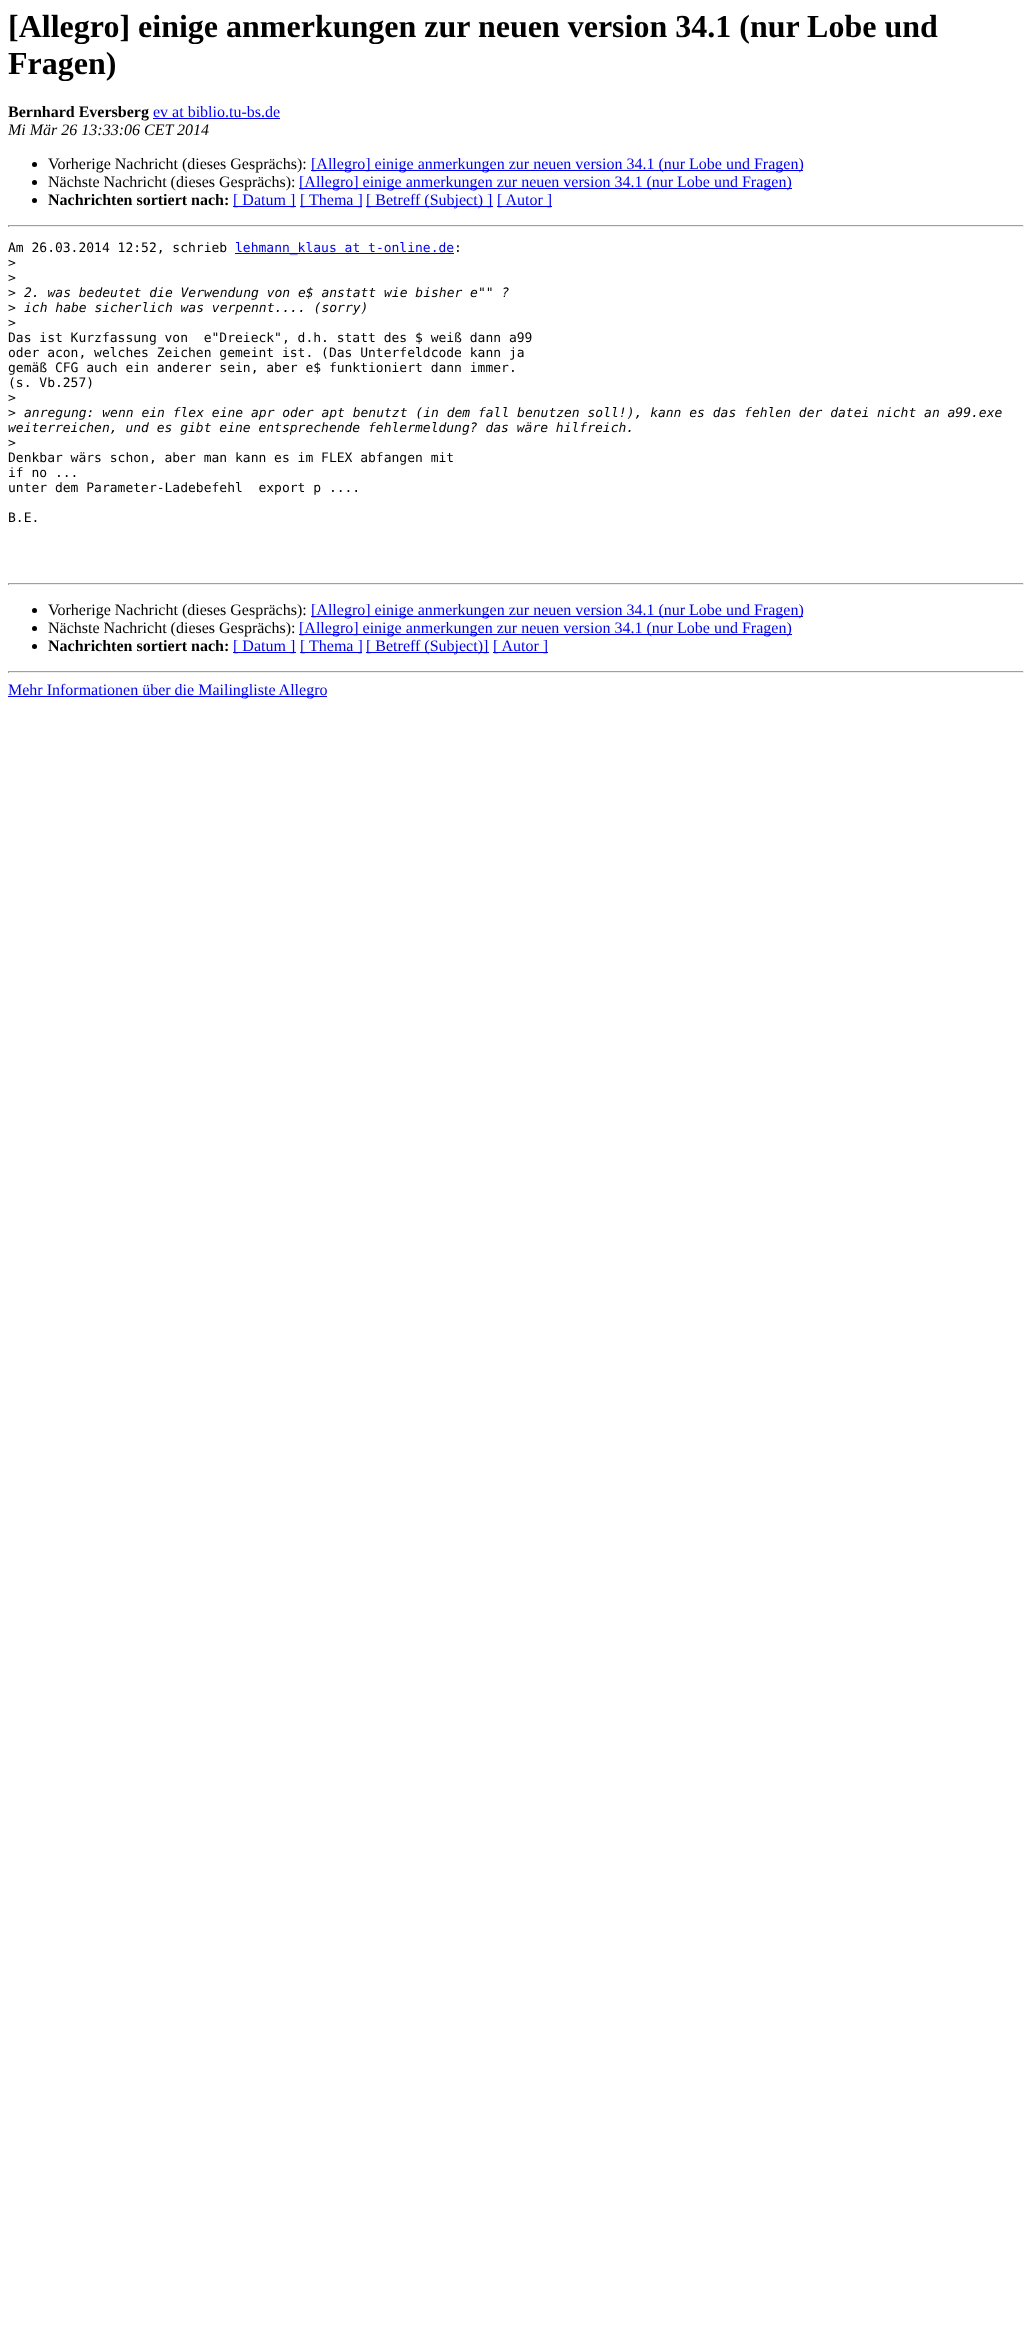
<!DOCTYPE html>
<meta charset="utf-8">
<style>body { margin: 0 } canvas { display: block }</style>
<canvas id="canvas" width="1032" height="2351"></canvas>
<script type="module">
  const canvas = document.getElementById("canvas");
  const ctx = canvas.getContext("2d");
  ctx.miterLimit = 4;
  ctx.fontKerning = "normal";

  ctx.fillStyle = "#ffffff";
  ctx.fillRect(0, 0, 1032, 2351);
  ctx.font = "bold 32px Liberation Serif";
  ctx.fillStyle = "#000000";
  ctx.fillText("[Allegro] einige anmerkungen zur neuen version 34.1 (nur Lobe und", 8, 37);
  ctx.fillText("Fragen)", 8, 74);
  ctx.font = "bold 16px Liberation Serif";
  ctx.fillText("Bernhard Eversberg", 8, 117);
  ctx.font = "16px Liberation Serif";
  ctx.fillStyle = "#0000ee";
  ctx.fillText("ev at biblio.tu-bs.de", 153, 117);
  ctx.fillRect(153, 118, 127, 1);
  ctx.font = "italic 16px Liberation Serif";
  ctx.fillStyle = "#000000";
  ctx.fillText("Mi Mär 26 13:33:06 CET 2014", 8, 135);
  ctx.beginPath();
  ctx.arc(34.5, 164.5, 2.5, 0, Math.PI * 2);
  ctx.fill();
  ctx.font = "16px Liberation Serif";
  ctx.fillText("Vorherige Nachricht (dieses Gesprächs):", 48, 169);
  ctx.fillStyle = "#0000ee";
  ctx.fillRect(311, 170, 492, 1);
  ctx.fillText("[Allegro] einige anmerkungen zur neuen version 34.1 (nur Lobe und Fragen)", 311, 169);
  ctx.fillStyle = "#000000";
  ctx.beginPath();
  ctx.arc(34.5, 182.5, 2.5, 0, Math.PI * 2);
  ctx.fill();
  ctx.fillText("Nächste Nachricht (dieses Gesprächs):", 48, 187);
  ctx.fillStyle = "#0000ee";
  ctx.fillRect(299, 188, 493, 1);
  ctx.fillText("[Allegro] einige anmerkungen zur neuen version 34.1 (nur Lobe und Fragen)", 299, 187);
  ctx.fillStyle = "#000000";
  ctx.beginPath();
  ctx.arc(34.5, 200.5, 2.5, 0, Math.PI * 2);
  ctx.fill();
  ctx.font = "bold 16px Liberation Serif";
  ctx.fillText("Nachrichten sortiert nach:", 48, 205);
  ctx.fillStyle = "#0000ee";
  ctx.fillRect(233, 206, 63, 1);
  ctx.font = "16px Liberation Serif";
  ctx.fillText("[ Datum ]", 233, 205);
  ctx.fillRect(300, 206, 62, 1);
  ctx.fillText("[ Thema ]", 300, 205);
  ctx.fillRect(366, 206, 127, 1);
  ctx.fillText("[ Betreff (Subject) ]", 366, 205);
  ctx.fillRect(497, 206, 55, 1);
  ctx.fillText("[ Autor ]", 497, 205);
  ctx.fillStyle = "#9f9f9f";
  ctx.fillRect(8, 225, 1016, 1);
  ctx.fillStyle = "#eeeeee";
  ctx.fillRect(1023, 225, 1, 2);
  ctx.fillRect(8, 226, 1016, 1);
  ctx.fillStyle = "#9f9f9f";
  ctx.fillRect(8, 225, 1, 2);
  ctx.font = "13px DejaVu Sans Mono";
  ctx.fillStyle = "#000000";
  ctx.fillText("Am 26.03.2014 12:52, schrieb", 8, 252);
  ctx.fillStyle = "#0000ee";
  ctx.fillRect(235, 253, 219, 1);
  ctx.fillText("lehmann_klaus at t-online.de", 235, 252);
  ctx.fillStyle = "#000000";
  ctx.fillText(":", 454, 252);
  ctx.fillText(">", 8, 267);
  ctx.fillText(">", 8, 282);
  ctx.fillText(">", 8, 297);
  ctx.font = "italic 13px DejaVu Sans Mono";
  ctx.fillText("2. was bedeutet die Verwendung von e$ anstatt wie bisher e\"\" ?", 24, 297);
  ctx.font = "13px DejaVu Sans Mono";
  ctx.fillText(">", 8, 312);
  ctx.font = "italic 13px DejaVu Sans Mono";
  ctx.fillText("ich habe sicherlich was verpennt.... (sorry)", 24, 312);
  ctx.font = "13px DejaVu Sans Mono";
  ctx.fillText(">", 8, 327);
  ctx.fillText("Das ist Kurzfassung von  e\"Dreieck\", d.h. statt des $ weiß dann a99", 8, 342);
  ctx.fillText("oder acon, welches Zeichen gemeint ist. (Das Unterfeldcode kann ja", 8, 357);
  ctx.fillText("gemäß CFG auch ein anderer sein, aber e$ funktioniert dann immer.", 8, 372);
  ctx.fillText("(s. Vb.257)", 8, 387);
  ctx.fillText(">", 8, 402);
  ctx.fillText(">", 8, 417);
  ctx.font = "italic 13px DejaVu Sans Mono";
  ctx.fillText("anregung: wenn ein flex eine apr oder apt benutzt (in dem fall benutzen soll!), kann es das fehlen der datei nicht an a99.exe", 24, 417);
  ctx.fillText("weiterreichen, und es gibt eine entsprechende fehlermeldung? das wäre hilfreich.", 8, 432);
  ctx.font = "13px DejaVu Sans Mono";
  ctx.fillText(">", 8, 447);
  ctx.fillText("Denkbar wärs schon, aber man kann es im FLEX abfangen mit", 8, 462);
  ctx.fillText("if no ...", 8, 477);
  ctx.fillText("unter dem Parameter-Ladebefehl  export p ....", 8, 492);
  ctx.fillText("B.E.", 8, 522);
  ctx.fillStyle = "#9f9f9f";
  ctx.fillRect(8, 583, 1016, 1);
  ctx.fillStyle = "#eeeeee";
  ctx.fillRect(1023, 583, 1, 2);
  ctx.fillRect(8, 584, 1016, 1);
  ctx.fillStyle = "#9f9f9f";
  ctx.fillRect(8, 583, 1, 2);
  ctx.fillStyle = "#000000";
  ctx.beginPath();
  ctx.arc(34.5, 610.5, 2.5, 0, Math.PI * 2);
  ctx.fill();
  ctx.font = "16px Liberation Serif";
  ctx.fillText("Vorherige Nachricht (dieses Gesprächs):", 48, 615);
  ctx.fillStyle = "#0000ee";
  ctx.fillRect(311, 616, 492, 1);
  ctx.fillText("[Allegro] einige anmerkungen zur neuen version 34.1 (nur Lobe und Fragen)", 311, 615);
  ctx.fillStyle = "#000000";
  ctx.beginPath();
  ctx.arc(34.5, 628.5, 2.5, 0, Math.PI * 2);
  ctx.fill();
  ctx.fillText("Nächste Nachricht (dieses Gesprächs):", 48, 633);
  ctx.fillStyle = "#0000ee";
  ctx.fillRect(299, 634, 493, 1);
  ctx.fillText("[Allegro] einige anmerkungen zur neuen version 34.1 (nur Lobe und Fragen)", 299, 633);
  ctx.fillStyle = "#000000";
  ctx.beginPath();
  ctx.arc(34.5, 646.5, 2.5, 0, Math.PI * 2);
  ctx.fill();
  ctx.font = "bold 16px Liberation Serif";
  ctx.fillText("Nachrichten sortiert nach:", 48, 651);
  ctx.fillStyle = "#0000ee";
  ctx.fillRect(233, 652, 63, 1);
  ctx.font = "16px Liberation Serif";
  ctx.fillText("[ Datum ]", 233, 651);
  ctx.fillRect(300, 652, 62, 1);
  ctx.fillText("[ Thema ]", 300, 651);
  ctx.fillRect(366, 652, 123, 1);
  ctx.fillText("[ Betreff (Subject)]", 366, 651);
  ctx.fillRect(493, 652, 55, 1);
  ctx.fillText("[ Autor ]", 493, 651);
  ctx.fillStyle = "#9f9f9f";
  ctx.fillRect(8, 671, 1016, 1);
  ctx.fillStyle = "#eeeeee";
  ctx.fillRect(1023, 671, 1, 2);
  ctx.fillRect(8, 672, 1016, 1);
  ctx.fillStyle = "#9f9f9f";
  ctx.fillRect(8, 671, 1, 2);
  ctx.fillStyle = "#0000ee";
  ctx.fillRect(8, 696, 319, 1);
  ctx.fillText("Mehr Informationen über die Mailingliste Allegro", 8, 695);
</script>
